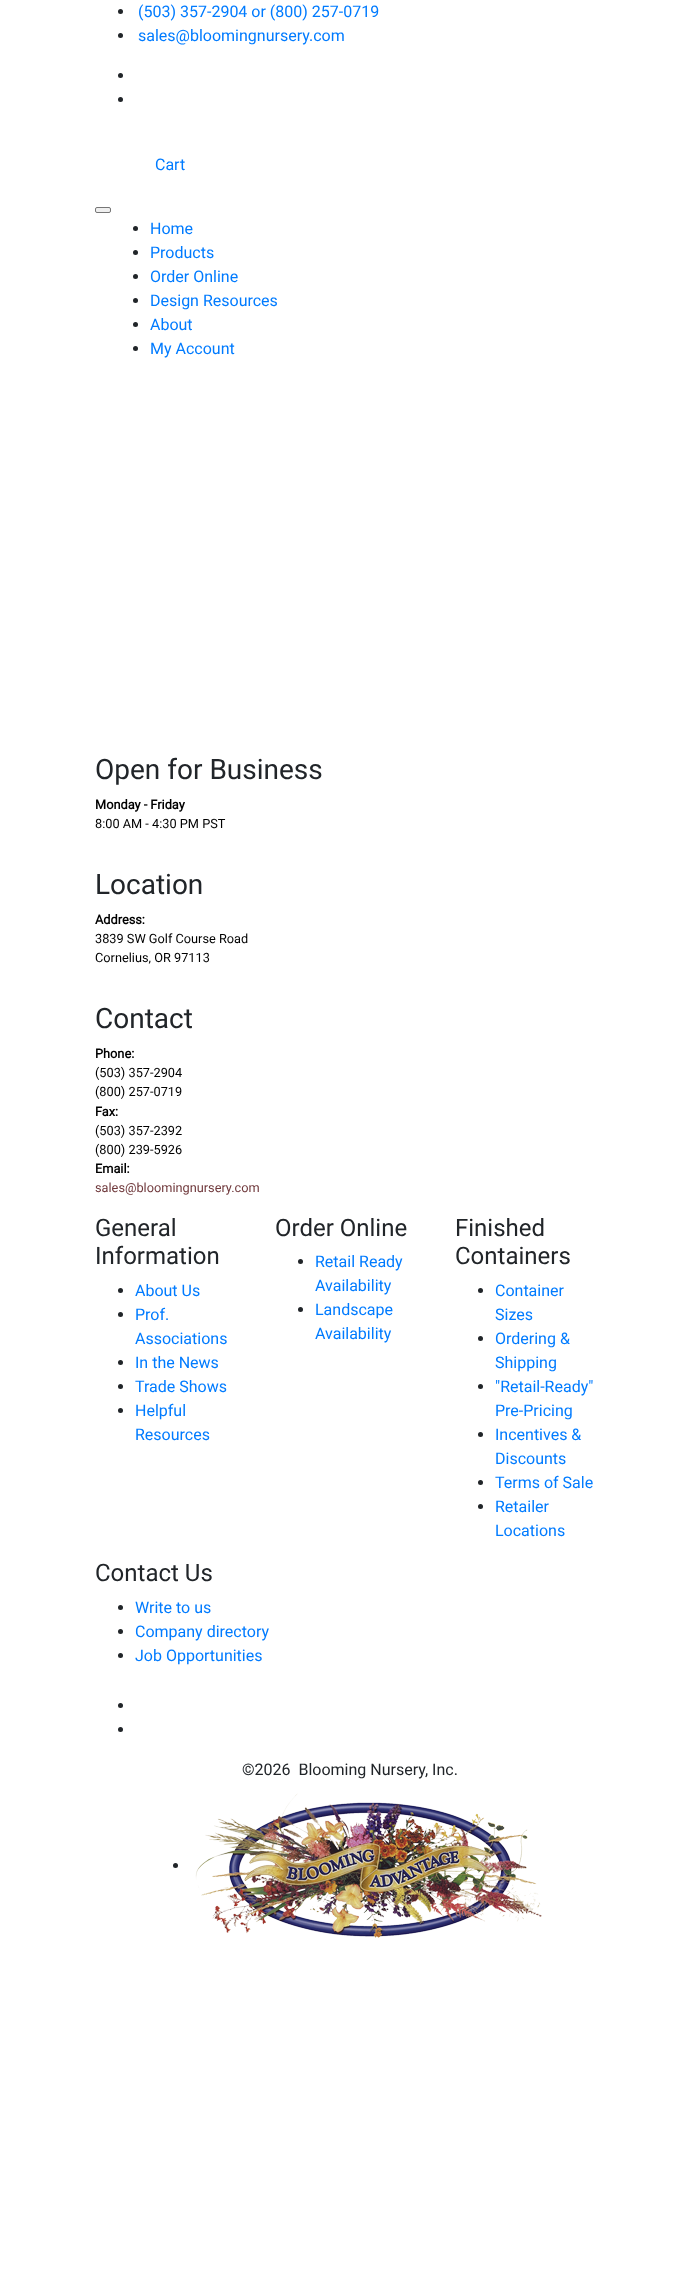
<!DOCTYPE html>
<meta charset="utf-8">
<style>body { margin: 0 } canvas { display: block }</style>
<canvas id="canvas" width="699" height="2293"></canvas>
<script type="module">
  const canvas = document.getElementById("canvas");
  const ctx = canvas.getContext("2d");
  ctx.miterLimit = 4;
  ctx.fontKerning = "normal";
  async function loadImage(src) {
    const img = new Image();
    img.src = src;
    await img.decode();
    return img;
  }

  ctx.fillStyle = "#ffffff";
  ctx.fillRect(0, 0, 699, 2293);
  ctx.fillStyle = "#212529";
  ctx.beginPath();
  ctx.arc(120.5, 11.5, 2.5, 0, Math.PI * 2);
  ctx.fill();
  ctx.font = "16px Roboto";
  ctx.fillStyle = "#007bff";
  ctx.fillText("(503) 357-2904 or (800) 257-0719", 138, 17);
  ctx.fillStyle = "#212529";
  ctx.beginPath();
  ctx.arc(120.5, 35.5, 2.5, 0, Math.PI * 2);
  ctx.fill();
  ctx.fillStyle = "#007bff";
  ctx.fillText("sales@bloomingnursery.com", 138, 41);
  ctx.fillStyle = "#212529";
  ctx.beginPath();
  ctx.arc(120.5, 75.5, 2.5, 0, Math.PI * 2);
  ctx.fill();
  ctx.beginPath();
  ctx.arc(120.5, 99.5, 2.5, 0, Math.PI * 2);
  ctx.fill();
  ctx.fillStyle = "#007bff";
  ctx.fillText("Cart", 155, 170);
  ctx.fillStyle = "#efefef";
  ctx.beginPath();
  ctx.roundRect(95.5, 207.5, 15, 5, 1.5);
  ctx.fill();
  ctx.strokeStyle = "#767676";
  ctx.stroke();
  ctx.fillStyle = "#212529";
  ctx.beginPath();
  ctx.arc(135.5, 228.5, 2.5, 0, Math.PI * 2);
  ctx.fill();
  ctx.fillStyle = "#007bff";
  ctx.fillText("Home", 150, 234);
  ctx.fillStyle = "#212529";
  ctx.beginPath();
  ctx.arc(135.5, 252.5, 2.5, 0, Math.PI * 2);
  ctx.fill();
  ctx.fillStyle = "#007bff";
  ctx.fillText("Products", 150, 258);
  ctx.fillStyle = "#212529";
  ctx.beginPath();
  ctx.arc(135.5, 276.5, 2.5, 0, Math.PI * 2);
  ctx.fill();
  ctx.fillStyle = "#007bff";
  ctx.fillText("Order Online", 150, 282);
  ctx.fillStyle = "#212529";
  ctx.beginPath();
  ctx.arc(135.5, 300.5, 2.5, 0, Math.PI * 2);
  ctx.fill();
  ctx.fillStyle = "#007bff";
  ctx.fillText("Design Resources", 150, 306);
  ctx.fillStyle = "#212529";
  ctx.beginPath();
  ctx.arc(135.5, 324.5, 2.5, 0, Math.PI * 2);
  ctx.fill();
  ctx.fillStyle = "#007bff";
  ctx.fillText("About", 150, 330);
  ctx.fillStyle = "#212529";
  ctx.beginPath();
  ctx.arc(135.5, 348.5, 2.5, 0, Math.PI * 2);
  ctx.fill();
  ctx.fillStyle = "#007bff";
  ctx.fillText("My Account", 150, 354);
  ctx.font = "28px Roboto";
  ctx.fillStyle = "#212529";
  ctx.fillText("Open for Business", 95, 779);
  ctx.font = "bold 12.75px Roboto";
  ctx.fillStyle = "#000000";
  ctx.fillText("Monday - Friday", 95, 809);
  ctx.font = "12.75px Roboto";
  ctx.fillText("8:00 AM - 4:30 PM PST", 95, 828);
  ctx.font = "28px Roboto";
  ctx.fillStyle = "#212529";
  ctx.fillText("Location", 95, 894);
  ctx.font = "bold 12.75px Roboto";
  ctx.fillStyle = "#000000";
  ctx.fillText("Address:", 95, 924);
  ctx.font = "12.75px Roboto";
  ctx.fillText("3839 SW Golf Course Road", 95, 943);
  ctx.fillText("Cornelius, OR 97113", 95, 962);
  ctx.font = "28px Roboto";
  ctx.fillStyle = "#212529";
  ctx.fillText("Contact", 95, 1028);
  ctx.font = "bold 12.75px Roboto";
  ctx.fillStyle = "#000000";
  ctx.fillText("Phone:", 95, 1058);
  ctx.font = "12.75px Roboto";
  ctx.fillText("(503) 357-2904", 95, 1077);
  ctx.fillText("(800) 257-0719", 95, 1096);
  ctx.font = "bold 12.75px Roboto";
  ctx.fillText("Fax:", 95, 1116);
  ctx.font = "12.75px Roboto";
  ctx.fillText("(503) 357-2392", 95, 1135);
  ctx.fillText("(800) 239-5926", 95, 1154);
  ctx.font = "bold 12.75px Roboto";
  ctx.fillText("Email:", 95, 1173);
  ctx.font = "12.75px Roboto";
  ctx.fillStyle = "#6f383b";
  ctx.fillText("sales@bloomingnursery.com", 95, 1192);
  ctx.font = "24px Roboto";
  ctx.fillStyle = "#212529";
  ctx.fillText("General", 95, 1236);
  ctx.fillText("Information", 95, 1264);
  ctx.beginPath();
  ctx.arc(120.5, 1290.5, 2.5, 0, Math.PI * 2);
  ctx.fill();
  ctx.font = "16px Roboto";
  ctx.fillStyle = "#007bff";
  ctx.fillText("About Us", 135, 1296);
  ctx.fillStyle = "#212529";
  ctx.beginPath();
  ctx.arc(120.5, 1314.5, 2.5, 0, Math.PI * 2);
  ctx.fill();
  ctx.fillStyle = "#007bff";
  ctx.fillText("Prof.", 135, 1320);
  ctx.fillText("Associations", 135, 1344);
  ctx.fillStyle = "#212529";
  ctx.beginPath();
  ctx.arc(120.5, 1362.5, 2.5, 0, Math.PI * 2);
  ctx.fill();
  ctx.fillStyle = "#007bff";
  ctx.fillText("In the News", 135, 1368);
  ctx.fillStyle = "#212529";
  ctx.beginPath();
  ctx.arc(120.5, 1386.5, 2.5, 0, Math.PI * 2);
  ctx.fill();
  ctx.fillStyle = "#007bff";
  ctx.fillText("Trade Shows", 135, 1392);
  ctx.fillStyle = "#212529";
  ctx.beginPath();
  ctx.arc(120.5, 1410.5, 2.5, 0, Math.PI * 2);
  ctx.fill();
  ctx.fillStyle = "#007bff";
  ctx.fillText("Helpful", 135, 1416);
  ctx.fillText("Resources", 135, 1440);
  ctx.font = "24px Roboto";
  ctx.fillStyle = "#212529";
  ctx.fillText("Order Online", 275, 1236);
  ctx.beginPath();
  ctx.arc(300.5, 1261.5, 2.5, 0, Math.PI * 2);
  ctx.fill();
  ctx.font = "16px Roboto";
  ctx.fillStyle = "#007bff";
  ctx.fillText("Retail Ready", 315, 1267);
  ctx.fillText("Availability", 315, 1291);
  ctx.fillStyle = "#212529";
  ctx.beginPath();
  ctx.arc(300.5, 1309.5, 2.5, 0, Math.PI * 2);
  ctx.fill();
  ctx.fillStyle = "#007bff";
  ctx.fillText("Landscape", 315, 1315);
  ctx.fillText("Availability", 315, 1339);
  ctx.font = "24px Roboto";
  ctx.fillStyle = "#212529";
  ctx.fillText("Finished", 455, 1236);
  ctx.fillText("Containers", 455, 1264);
  ctx.beginPath();
  ctx.arc(480.5, 1290.5, 2.5, 0, Math.PI * 2);
  ctx.fill();
  ctx.font = "16px Roboto";
  ctx.fillStyle = "#007bff";
  ctx.fillText("Container", 495, 1296);
  ctx.fillText("Sizes", 495, 1320);
  ctx.fillStyle = "#212529";
  ctx.beginPath();
  ctx.arc(480.5, 1338.5, 2.5, 0, Math.PI * 2);
  ctx.fill();
  ctx.fillStyle = "#007bff";
  ctx.fillText("Ordering &", 495, 1344);
  ctx.fillText("Shipping", 495, 1368);
  ctx.fillStyle = "#212529";
  ctx.beginPath();
  ctx.arc(480.5, 1386.5, 2.5, 0, Math.PI * 2);
  ctx.fill();
  ctx.fillStyle = "#007bff";
  ctx.fillText("\"Retail-Ready\"", 495, 1392);
  ctx.fillText("Pre-Pricing", 495, 1416);
  ctx.fillStyle = "#212529";
  ctx.beginPath();
  ctx.arc(480.5, 1434.5, 2.5, 0, Math.PI * 2);
  ctx.fill();
  ctx.fillStyle = "#007bff";
  ctx.fillText("Incentives &", 495, 1440);
  ctx.fillText("Discounts", 495, 1464);
  ctx.fillStyle = "#212529";
  ctx.beginPath();
  ctx.arc(480.5, 1482.5, 2.5, 0, Math.PI * 2);
  ctx.fill();
  ctx.fillStyle = "#007bff";
  ctx.fillText("Terms of Sale", 495, 1488);
  ctx.fillStyle = "#212529";
  ctx.beginPath();
  ctx.arc(480.5, 1506.5, 2.5, 0, Math.PI * 2);
  ctx.fill();
  ctx.fillStyle = "#007bff";
  ctx.fillText("Retailer", 495, 1512);
  ctx.fillText("Locations", 495, 1536);
  ctx.font = "24px Roboto";
  ctx.fillStyle = "#212529";
  ctx.fillText("Contact Us", 95, 1581);
  ctx.beginPath();
  ctx.arc(120.5, 1607.5, 2.5, 0, Math.PI * 2);
  ctx.fill();
  ctx.font = "16px Roboto";
  ctx.fillStyle = "#007bff";
  ctx.fillText("Write to us", 135, 1613);
  ctx.fillStyle = "#212529";
  ctx.beginPath();
  ctx.arc(120.5, 1631.5, 2.5, 0, Math.PI * 2);
  ctx.fill();
  ctx.fillStyle = "#007bff";
  ctx.fillText("Company directory", 135, 1637);
  ctx.fillStyle = "#212529";
  ctx.beginPath();
  ctx.arc(120.5, 1655.5, 2.5, 0, Math.PI * 2);
  ctx.fill();
  ctx.fillStyle = "#007bff";
  ctx.fillText("Job Opportunities", 135, 1661);
  ctx.fillStyle = "#212529";
  ctx.beginPath();
  ctx.arc(120.5, 1705.5, 2.5, 0, Math.PI * 2);
  ctx.fill();
  ctx.beginPath();
  ctx.arc(120.5, 1729.5, 2.5, 0, Math.PI * 2);
  ctx.fill();
  ctx.fillText("©2026  Blooming Nursery, Inc.", 242, 1775);
  ctx.beginPath();
  ctx.arc(175.5, 1865.5, 2.5, 0, Math.PI * 2);
  ctx.fill();
  ctx.drawImage(await loadImage("img1.png"), 195, 1793, 347, 145);
</script>
